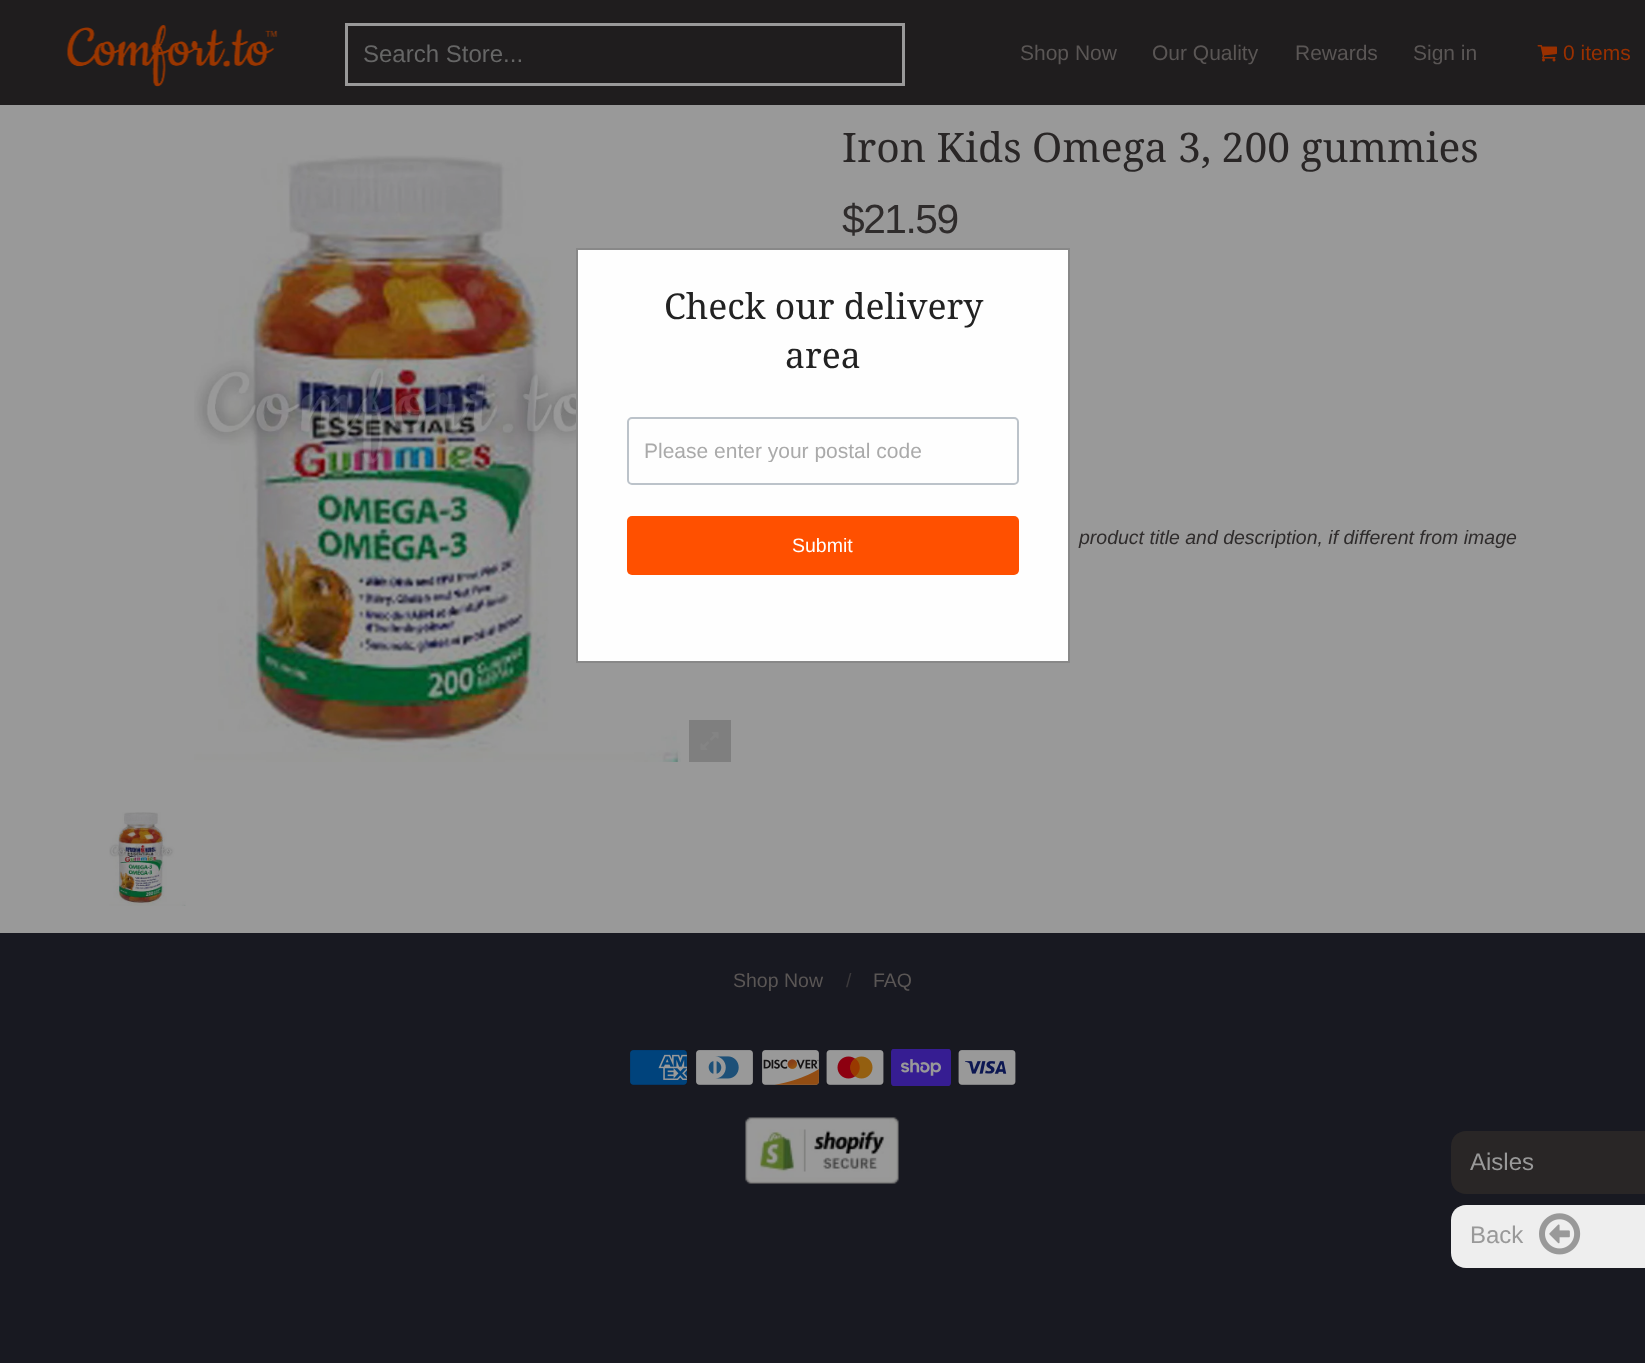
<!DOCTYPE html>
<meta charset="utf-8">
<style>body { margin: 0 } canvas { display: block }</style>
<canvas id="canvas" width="1645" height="1363"></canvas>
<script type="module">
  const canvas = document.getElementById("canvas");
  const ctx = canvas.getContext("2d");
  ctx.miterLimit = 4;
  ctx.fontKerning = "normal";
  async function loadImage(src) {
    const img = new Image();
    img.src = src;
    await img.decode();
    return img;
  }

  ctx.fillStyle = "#181921";
  ctx.fillRect(0, 0, 1645, 1363);
  ctx.fillStyle = "#1f1d1e";
  ctx.fillRect(0, 0, 1645, 105);
  ctx.drawImage(await loadImage("img1.png"), 67, 25, 211, 62);
  ctx.strokeStyle = "#999999";
  ctx.lineWidth = 3;
  ctx.strokeRect(346.5, 24.5, 557, 60);
  ctx.font = "24px Liberation Sans";
  ctx.fillStyle = "#666666";
  ctx.fillText("Search Store...", 363, 62);
  ctx.font = "21px Liberation Sans";
  ctx.fillStyle = "#5a5655";
  ctx.fillText("Shop Now", 1020, 60);
  ctx.fillText("Our Quality", 1152, 60);
  ctx.fillText("Rewards", 1295, 60);
  ctx.fillText("Sign in", 1413, 60);
  ctx.drawImage(await loadImage("img2.png"), 1537, 45, 20, 17);
  ctx.fillStyle = "#993000";
  ctx.fillText("0 items", 1563, 60);
  ctx.fillStyle = "#999999";
  ctx.fillRect(0, 105, 1645, 828);
  ctx.drawImage(await loadImage("img3.png"), 194, 155, 487, 607);
  ctx.fillStyle = "#fefefe";
  ctx.beginPath();
  ctx.rect(577, 249, 492, 413);
  ctx.fill();
  ctx.strokeStyle = "#888888";
  ctx.lineWidth = 2;
  ctx.stroke();
  ctx.font = "35.5px Droid Serif";
  ctx.fillStyle = "#222222";
  ctx.fillText("Check our delivery", 664, 319);
  ctx.fillText("area", 785, 368);
  ctx.beginPath();
  ctx.roundRect(628, 418, 390, 66, 4);
  ctx.strokeStyle = "#bcc3ca";
  ctx.stroke();
  ctx.save();
  ctx.beginPath();
  ctx.rect(645, 438, 356, 24);
  ctx.clip();
  ctx.font = "21px Liberation Sans";
  ctx.fillStyle = "#aaaaaa";
  ctx.fillText("Please enter your postal code", 644, 458);
  ctx.restore();
  ctx.fillStyle = "#ff5000";
  ctx.beginPath();
  ctx.roundRect(627, 516, 392, 59, 5);
  ctx.fill();
  ctx.font = "19.5px Liberation Sans";
  ctx.fillStyle = "#ffffff";
  ctx.fillText("Submit", 792, 552);
  ctx.fillStyle = "#7f7f7f";
  ctx.fillRect(689, 720, 42, 42);
  ctx.drawImage(await loadImage("img4.png"), 700, 732, 19, 18);
  ctx.drawImage(await loadImage("img5.png"), 109, 812, 77, 94);
  ctx.font = "40.75px Droid Serif";
  ctx.fillStyle = "#292626";
  ctx.fillText("Iron Kids Omega 3, 200 gummies", 842, 162);
  ctx.letterSpacing = "-1.5px";
  ctx.font = "40.75px Liberation Sans";
  ctx.fillStyle = "#2f2c2c";
  ctx.fillText("$21.59", 842, 233);
  ctx.letterSpacing = "0px";
  ctx.font = "italic 19.5px Liberation Sans";
  ctx.fillText("product title and description, if different from image", 1079, 544);
  ctx.font = "19.5px Liberation Sans";
  ctx.fillStyle = "#5a5655";
  ctx.fillText("Shop Now", 733, 987);
  ctx.fillStyle = "#3c3a3c";
  ctx.fillText("/", 846, 987);
  ctx.fillStyle = "#5a5655";
  ctx.fillText("FAQ", 873, 987);
  ctx.drawImage(await loadImage("img6.png"), 630, 1050, 57, 35);
  ctx.drawImage(await loadImage("img7.png"), 696, 1050, 57, 35);
  ctx.drawImage(await loadImage("img8.png"), 762, 1050, 57, 35);
  ctx.drawImage(await loadImage("img9.png"), 826, 1050, 58, 35);
  ctx.drawImage(await loadImage("img10.png"), 891, 1049, 60, 37);
  ctx.drawImage(await loadImage("img11.png"), 958, 1050, 58, 35);
  ctx.drawImage(await loadImage("img12.png"), 745, 1117, 154, 67);
  ctx.fillStyle = "#292626";
  ctx.beginPath();
  ctx.moveTo(1466, 1131);
  ctx.lineTo(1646, 1131);
  ctx.lineTo(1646, 1194);
  ctx.lineTo(1466, 1194);
  ctx.bezierCurveTo(1457.5, 1194, 1451, 1187.5, 1451, 1179);
  ctx.lineTo(1451, 1146);
  ctx.bezierCurveTo(1451, 1137.5, 1457.5, 1131, 1466, 1131);
  ctx.closePath();
  ctx.fill();
  ctx.font = "24px Liberation Sans";
  ctx.fillStyle = "#999999";
  ctx.fillText("Aisles", 1470, 1170);
  ctx.fillStyle = "#eeeeee";
  ctx.beginPath();
  ctx.moveTo(1466, 1205);
  ctx.lineTo(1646, 1205);
  ctx.lineTo(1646, 1268);
  ctx.lineTo(1466, 1268);
  ctx.bezierCurveTo(1457.5, 1268, 1451, 1261.5, 1451, 1253);
  ctx.lineTo(1451, 1220);
  ctx.bezierCurveTo(1451, 1211.5, 1457.5, 1205, 1466, 1205);
  ctx.closePath();
  ctx.fill();
  ctx.fillStyle = "#999999";
  ctx.fillText("Back", 1470, 1243);
  ctx.drawImage(await loadImage("img13.png"), 1539, 1213, 42, 42);
</script>
